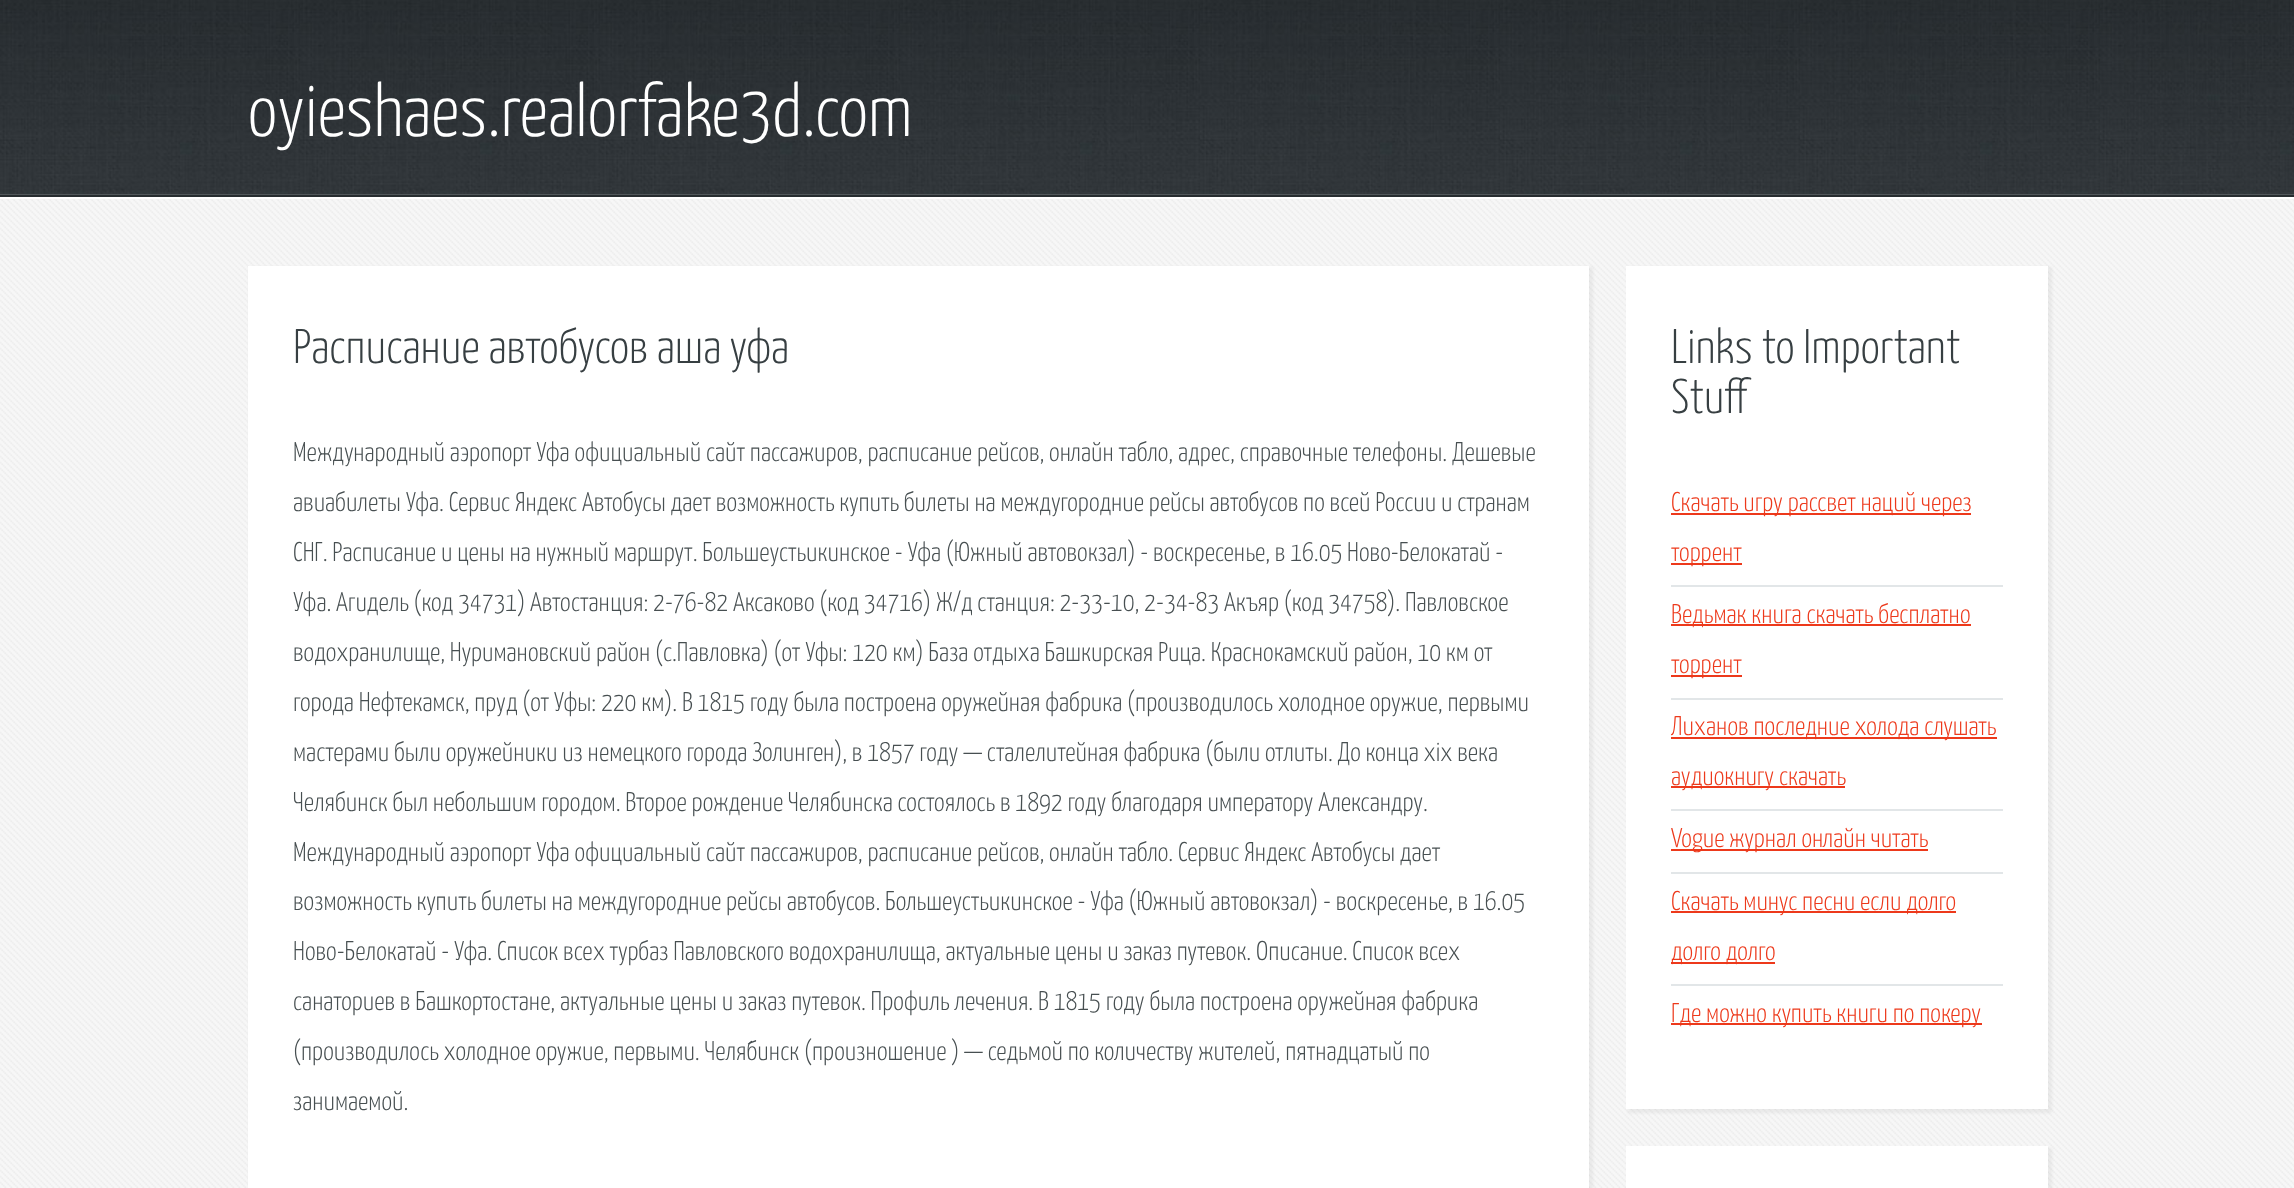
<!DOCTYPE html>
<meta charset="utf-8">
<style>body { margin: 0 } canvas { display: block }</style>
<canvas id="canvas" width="2294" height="1188"></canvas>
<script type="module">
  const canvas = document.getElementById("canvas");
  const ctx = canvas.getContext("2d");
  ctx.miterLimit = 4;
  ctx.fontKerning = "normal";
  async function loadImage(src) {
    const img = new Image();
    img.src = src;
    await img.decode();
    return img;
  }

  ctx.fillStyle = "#f7f7f7";
  ctx.fillRect(0, 0, 2294, 1188);
  ctx.drawImage(await loadImage("img1.png"), 0, 0, 2294, 194);
  ctx.fillStyle = "#51575a";
  ctx.fillRect(0, 194, 2294, 1);
  ctx.fillStyle = "#272d30";
  ctx.fillRect(0, 195, 2294, 2);
  ctx.font = "300 74.25px Yanone Kaffeesatz";
  ctx.fillStyle = "#ffffff";
  ctx.fillText("oyieshaes.realorfake3d.com", 248, 136);
  ctx.drawImage(await loadImage("img2.png"), 0, 199, 2294, 989);
  ctx.fillRect(0, 197, 2294, 2);
  ctx.fillStyle = "rgba(128, 128, 128, 0.1)";
  ctx.filter = "blur(1.5px)";
  ctx.beginPath();
  ctx.rect(249, 267, 1344, 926);
  ctx.fill();
  ctx.filter = "none";
  ctx.fillStyle = "#ffffff";
  ctx.fillRect(248, 266, 1341, 922);
  ctx.font = "300 48.6px Yanone Kaffeesatz";
  ctx.fillStyle = "#373f42";
  ctx.fillText("Расписание автобусов аша уфа", 293, 363);
  ctx.font = "300 27px Yanone Kaffeesatz";
  ctx.fillStyle = "#474f51";
  ctx.fillText("Международный аэропорт Уфа официальный сайт пассажиров, расписание рейсов, онлайн табло, адрес, справочные телефоны. Дешевые", 293, 461);
  ctx.fillText("авиабилеты Уфа. Сервис Яндекс Автобусы дает возможность купить билеты на междугородние рейсы автобусов по всей России и странам", 293, 511);
  ctx.fillText("СНГ. Расписание и цены на нужный маршрут. Большеустьикинское - Уфа (Южный автовокзал) - воскресенье, в 16.05 Ново-Белокатай -", 293, 561);
  ctx.fillText("Уфа. Агидель (код 34731) Автостанция: 2-76-82 Аксаково (код 34716) Ж/д станция: 2-33-10, 2-34-83 Акъяр (код 34758). Павловское", 293, 611);
  ctx.fillText("водохранилище, Нуримановский район (с.Павловка) (от Уфы: 120 км) База отдыха Башкирская Рица. Краснокамский район, 10 км от", 293, 661);
  ctx.fillText("города Нефтекамск, пруд (от Уфы: 220 км). В 1815 году была построена оружейная фабрика (производилось холодное оружие, первыми", 293, 711);
  ctx.fillText("мастерами были оружейники из немецкого города Золинген), в 1857 году — сталелитейная фабрика (были отлиты. До конца xix века", 293, 761);
  ctx.fillText("Челябинск был небольшим городом. Второе рождение Челябинска состоялось в 1892 году благодаря императору Александру.", 293, 811);
  ctx.fillText("Международный аэропорт Уфа официальный сайт пассажиров, расписание рейсов, онлайн табло. Сервис Яндекс Автобусы дает", 293, 861);
  ctx.fillText("возможность купить билеты на междугородние рейсы автобусов. Большеустьикинское - Уфа (Южный автовокзал) - воскресенье, в 16.05", 293, 910);
  ctx.fillText("Ново-Белокатай - Уфа. Список всех турбаз Павловского водохранилища, актуальные цены и заказ путевок. Описание. Список всех", 293, 960);
  ctx.fillText("санаториев в Башкортостане, актуальные цены и заказ путевок. Профиль лечения. В 1815 году была построена оружейная фабрика", 293, 1010);
  ctx.fillText("(производилось холодное оружие, первыми. Челя́бинск (произношение ) — седьмой по количеству жителей, пятнадцатый по", 293, 1060);
  ctx.fillText("занимаемой.", 293, 1110);
  ctx.fillStyle = "rgba(128, 128, 128, 0.1)";
  ctx.filter = "blur(1.5px)";
  ctx.beginPath();
  ctx.rect(1628, 267, 424, 846);
  ctx.fill();
  ctx.filter = "none";
  ctx.fillStyle = "#ffffff";
  ctx.fillRect(1626, 266, 422, 843);
  ctx.font = "300 48.6px Yanone Kaffeesatz";
  ctx.fillStyle = "#373f42";
  ctx.fillText("Links to Important", 1671, 363);
  ctx.fillText("Stuff", 1671, 413);
  ctx.fillStyle = "#e2e6e8";
  ctx.fillRect(1671, 585, 332, 2);
  ctx.fillStyle = "#ed391b";
  ctx.fillRect(1671, 513, 300, 2);
  ctx.font = "300 27px Yanone Kaffeesatz";
  ctx.fillText("Скачать игру рассвет наций через", 1671, 511);
  ctx.fillRect(1671, 563, 71, 2);
  ctx.fillText("торрент", 1671, 561);
  ctx.fillStyle = "#e2e6e8";
  ctx.fillRect(1671, 698, 332, 2);
  ctx.fillStyle = "#ed391b";
  ctx.fillRect(1671, 624, 300, 2);
  ctx.fillText("Ведьмак книга скачать бесплатно", 1671, 623);
  ctx.fillRect(1671, 675, 71, 2);
  ctx.fillText("торрент", 1671, 673);
  ctx.fillStyle = "#e2e6e8";
  ctx.fillRect(1671, 809, 332, 2);
  ctx.fillStyle = "#ed391b";
  ctx.fillRect(1671, 737, 326, 2);
  ctx.fillText("Лиханов последние холода слушать", 1671, 735);
  ctx.fillRect(1671, 786, 174, 2);
  ctx.fillText("аудиокнигу скачать", 1671, 785);
  ctx.fillStyle = "#e2e6e8";
  ctx.fillRect(1671, 872, 332, 2);
  ctx.fillStyle = "#ed391b";
  ctx.fillRect(1671, 849, 257, 2);
  ctx.fillText("Vogue журнал онлайн читать", 1671, 847);
  ctx.fillStyle = "#e2e6e8";
  ctx.fillRect(1671, 984, 332, 2);
  ctx.fillStyle = "#ed391b";
  ctx.fillRect(1671, 911, 285, 2);
  ctx.fillText("Скачать минус песни если долго", 1671, 910);
  ctx.fillRect(1671, 962, 104, 2);
  ctx.fillText("долго долго", 1671, 960);
  ctx.fillRect(1671, 1023, 311, 2);
  ctx.fillText("Где можно купить книги по покеру", 1671, 1022);
  ctx.fillStyle = "rgba(128, 128, 128, 0.1)";
  ctx.filter = "blur(1.5px)";
  ctx.beginPath();
  ctx.rect(1628, 1148, 424, 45);
  ctx.fill();
  ctx.filter = "none";
  ctx.fillStyle = "#ffffff";
  ctx.fillRect(1626, 1146, 422, 42);
</script>
